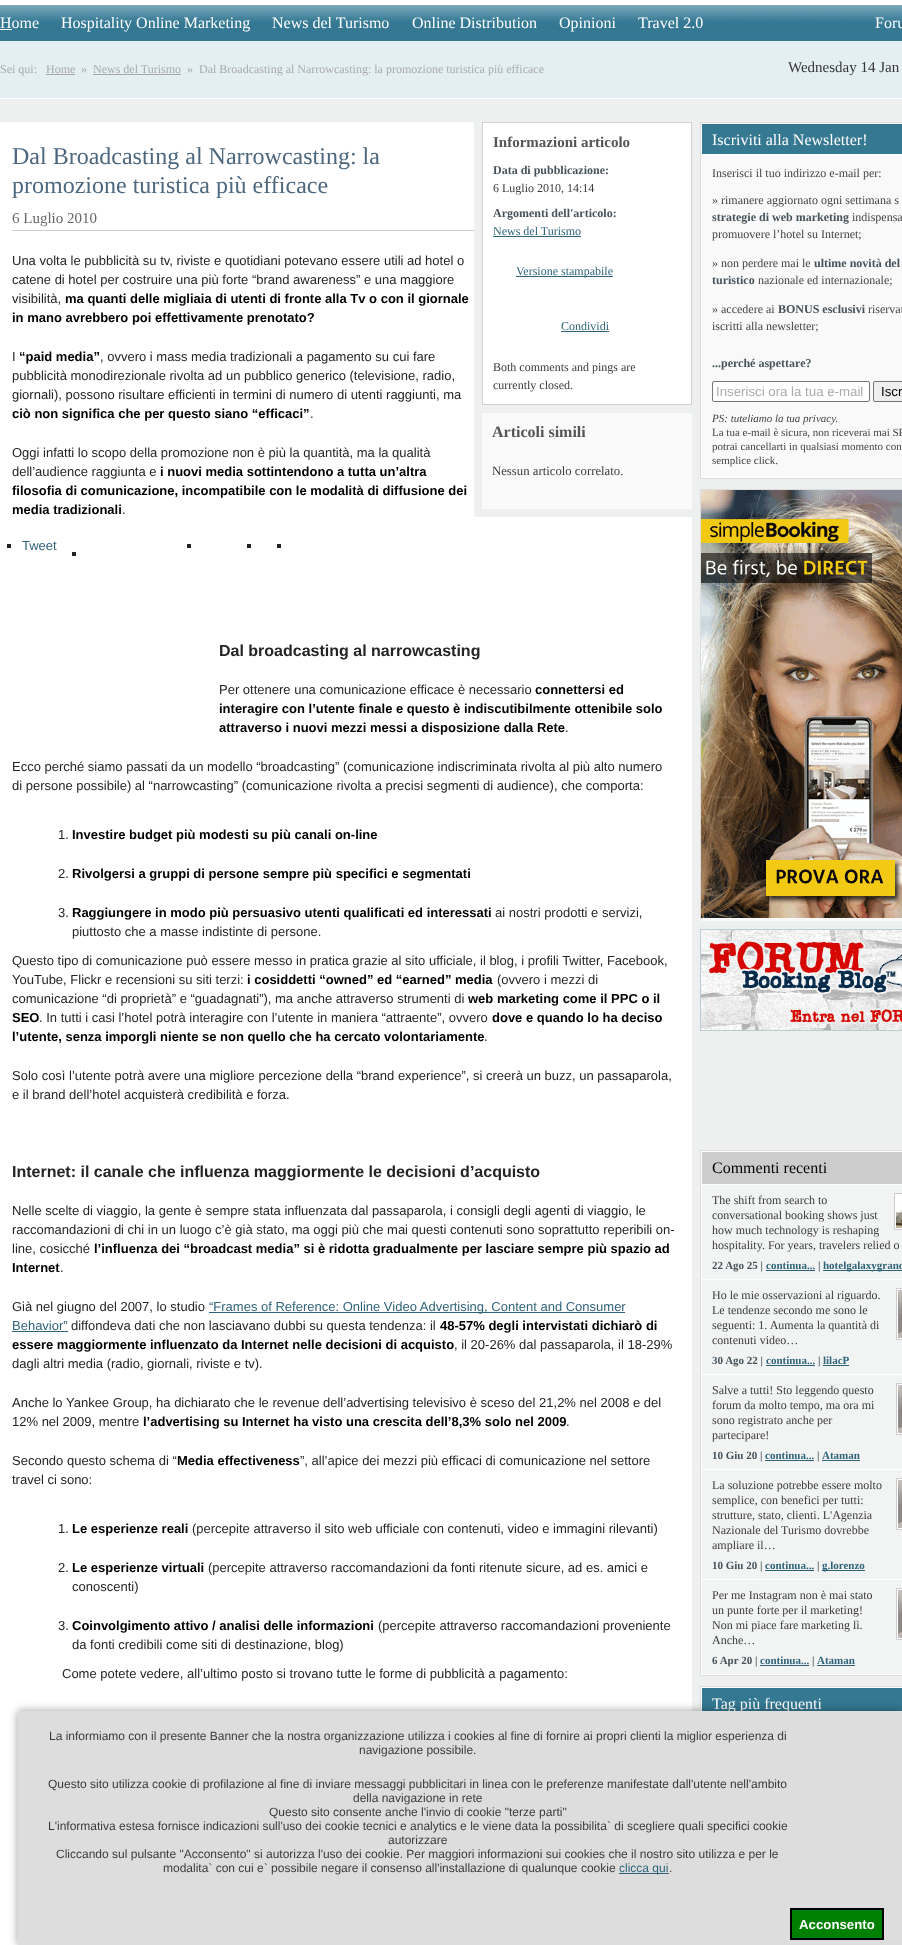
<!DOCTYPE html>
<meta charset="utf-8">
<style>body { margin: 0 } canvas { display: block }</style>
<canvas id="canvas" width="902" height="1945"></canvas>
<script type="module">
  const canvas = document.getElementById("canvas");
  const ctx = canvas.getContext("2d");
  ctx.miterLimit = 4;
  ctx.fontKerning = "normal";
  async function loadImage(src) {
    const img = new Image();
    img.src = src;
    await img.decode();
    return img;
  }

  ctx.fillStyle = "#eef0ef";
  ctx.fillRect(0, 0, 902, 1945);
  ctx.drawImage(await loadImage("img1.png"), 0, 5, 902, 94);
  ctx.fillStyle = "#ffffff";
  ctx.fillRect(0, 0, 902, 5);
  ctx.font = "16px Liberation Serif";
  ctx.fillText("Home", 0, 28);
  ctx.fillRect(0, 29, 12, 1);
  ctx.fillText("Hospitality Online Marketing", 61, 28);
  ctx.fillText("News del Turismo", 272, 28);
  ctx.fillText("Online Distribution", 412, 28);
  ctx.fillText("Opinioni", 559, 28);
  ctx.fillText("Travel 2.0", 638, 28);
  ctx.fillText("Foru", 875, 28);
  ctx.font = "12px Liberation Serif";
  ctx.fillStyle = "#aaaaaa";
  ctx.fillText("Sei qui:", 0, 73);
  ctx.fillText("Home", 46, 73);
  ctx.fillStyle = "#a5a9ab";
  ctx.fillRect(46, 74, 29, 1);
  ctx.fillStyle = "#aaaaaa";
  ctx.fillText("»", 81, 73);
  ctx.fillText("News del Turismo", 93, 73);
  ctx.fillStyle = "#a5a9ab";
  ctx.fillRect(93, 74, 88, 1);
  ctx.fillStyle = "#aaaaaa";
  ctx.fillText("»  Dal Broadcasting al Narrowcasting: la promozione turistica più efficace", 187, 73);
  ctx.font = "15px Liberation Serif";
  ctx.fillStyle = "#353535";
  ctx.fillText("Wednesday 14 Jan", 788, 72);
  ctx.fillStyle = "#ffffff";
  ctx.fillRect(0, 122, 692, 1823);
  ctx.fillStyle = "#eef0ef";
  ctx.fillRect(474, 509, 218, 8);
  ctx.fillRect(474, 122, 8, 395);
  ctx.fillRect(482, 405, 210, 8);
  ctx.strokeStyle = "#d1d1d1";
  ctx.strokeRect(482.5, 122.5, 209, 282);
  ctx.font = "bold 15px Liberation Serif";
  ctx.fillStyle = "#555555";
  ctx.fillText("Informazioni articolo", 493, 147);
  ctx.font = "bold 12px Liberation Serif";
  ctx.fillStyle = "#46535a";
  ctx.fillText("Data di pubblicazione:", 493, 174);
  ctx.font = "12px Liberation Serif";
  ctx.fillStyle = "#3b3b3b";
  ctx.fillText("6 Luglio 2010, 14:14", 493, 192);
  ctx.font = "bold 12px Liberation Serif";
  ctx.fillStyle = "#46535a";
  ctx.fillText("Argomenti dell'articolo:", 493, 217);
  ctx.font = "12px Liberation Serif";
  ctx.fillStyle = "#2f637a";
  ctx.fillText("News del Turismo", 493, 235);
  ctx.fillRect(493, 236, 88, 1);
  ctx.fillRect(516, 276, 97, 1);
  ctx.fillText("Versione stampabile", 516, 275);
  ctx.fillText("Condividi", 561, 330);
  ctx.fillRect(561, 331, 48, 1);
  ctx.fillStyle = "#3b3b3b";
  ctx.fillText("Both comments and pings are", 493, 371);
  ctx.fillText("currently closed.", 493, 389);
  ctx.fillStyle = "#fafafa";
  ctx.fillRect(482, 413, 210, 96);
  ctx.font = "bold 16px Liberation Serif";
  ctx.fillStyle = "#555555";
  ctx.fillText("Articoli simili", 492, 437);
  ctx.font = "12.75px Liberation Serif";
  ctx.fillStyle = "#3b3b3b";
  ctx.fillText("Nessun articolo correlato.", 492, 475);
  ctx.font = "24px Liberation Serif";
  ctx.fillStyle = "#4d677e";
  ctx.fillText("Dal Broadcasting al Narrowcasting: la", 12, 164);
  ctx.fillText("promozione turistica più efficace", 12, 193);
  ctx.font = "15px Liberation Serif";
  ctx.fillStyle = "#666666";
  ctx.fillText("6 Luglio 2010", 12, 223);
  ctx.fillStyle = "#cfcfcf";
  ctx.fillRect(12, 230, 462, 1);
  ctx.font = "13px Liberation Sans";
  ctx.fillStyle = "#242424";
  ctx.fillText("Una volta le pubblicità su tv, riviste e quotidiani potevano essere utili ad hotel o", 12, 265);
  ctx.fillText("catene di hotel per costruire una più forte “brand awareness” e una maggiore", 12, 284);
  ctx.fillText("visibilità,", 12, 303);
  ctx.font = "bold 13px Liberation Sans";
  ctx.fillStyle = "#000000";
  ctx.fillText("ma quanti delle migliaia di utenti di fronte alla Tv o con il giornale", 65, 303);
  ctx.fillText("in mano avrebbero poi effettivamente prenotato?", 12, 322);
  ctx.font = "13px Liberation Sans";
  ctx.fillStyle = "#242424";
  ctx.fillText("I", 12, 361);
  ctx.font = "bold 13px Liberation Sans";
  ctx.fillStyle = "#000000";
  ctx.fillText("“paid media”", 19, 361);
  ctx.font = "13px Liberation Sans";
  ctx.fillStyle = "#242424";
  ctx.fillText(", ovvero i mass media tradizionali a pagamento su cui fare", 100, 361);
  ctx.fillText("pubblicità monodirezionale rivolta ad un pubblico generico (televisione, radio,", 12, 380);
  ctx.fillText("giornali), possono risultare efficienti in termini di numero di utenti raggiunti, ma", 12, 399);
  ctx.font = "bold 13px Liberation Sans";
  ctx.fillStyle = "#000000";
  ctx.fillText("ciò non significa che per questo siano “efficaci”", 12, 418);
  ctx.font = "13px Liberation Sans";
  ctx.fillStyle = "#242424";
  ctx.fillText(".", 310, 418);
  ctx.fillText("Oggi infatti lo scopo della promozione non è più la quantità, ma la qualità", 12, 457);
  ctx.fillText("dell’audience raggiunta e", 12, 476);
  ctx.font = "bold 13px Liberation Sans";
  ctx.fillStyle = "#000000";
  ctx.fillText("i nuovi media sottintendono a tutta un’altra", 160, 476);
  ctx.fillText("filosofia di comunicazione, incompatibile con le modalità di diffusione dei", 12, 495);
  ctx.fillText("media tradizionali", 12, 514);
  ctx.font = "13px Liberation Sans";
  ctx.fillStyle = "#242424";
  ctx.fillText(".", 122, 514);
  ctx.fillRect(7, 544, 4, 4);
  ctx.fillStyle = "#2f637a";
  ctx.fillText("Tweet", 22, 550);
  ctx.fillStyle = "#242424";
  ctx.fillRect(187, 544, 4, 4);
  ctx.fillRect(247, 544, 4, 4);
  ctx.fillRect(277, 544, 4, 4);
  ctx.fillRect(72, 552, 4, 4);
  ctx.font = "bold 16px Liberation Sans";
  ctx.fillText("Dal broadcasting al narrowcasting", 219, 656);
  ctx.font = "13px Liberation Sans";
  ctx.fillText("Per ottenere una comunicazione efficace è necessario", 219, 694);
  ctx.font = "bold 13px Liberation Sans";
  ctx.fillStyle = "#000000";
  ctx.fillText("connettersi ed", 535, 694);
  ctx.fillText("interagire con l’utente finale e questo è indiscutibilmente ottenibile solo", 219, 713);
  ctx.fillText("attraverso i nuovi mezzi messi a disposizione dalla Rete", 219, 732);
  ctx.font = "13px Liberation Sans";
  ctx.fillStyle = "#242424";
  ctx.fillText(".", 565, 732);
  ctx.fillText("Ecco perché siamo passati da un modello “broadcasting” (comunicazione indiscriminata rivolta al più alto numero", 12, 771);
  ctx.fillText("di persone possibile) al “narrowcasting” (comunicazione rivolta a precisi segmenti di audience), che comporta:", 12, 790);
  ctx.fillText("1.", 58, 839);
  ctx.font = "bold 13px Liberation Sans";
  ctx.fillStyle = "#000000";
  ctx.fillText("Investire budget più modesti su più canali on-line", 72, 839);
  ctx.font = "13px Liberation Sans";
  ctx.fillStyle = "#242424";
  ctx.fillText("2.", 58, 878);
  ctx.font = "bold 13px Liberation Sans";
  ctx.fillStyle = "#000000";
  ctx.fillText("Rivolgersi a gruppi di persone sempre più specifici e segmentati", 72, 878);
  ctx.font = "13px Liberation Sans";
  ctx.fillStyle = "#242424";
  ctx.fillText("3.", 58, 917);
  ctx.font = "bold 13px Liberation Sans";
  ctx.fillStyle = "#000000";
  ctx.fillText("Raggiungere in modo più persuasivo utenti qualificati ed interessati", 72, 917);
  ctx.font = "13px Liberation Sans";
  ctx.fillStyle = "#242424";
  ctx.fillText("ai nostri prodotti e servizi,", 495, 917);
  ctx.fillText("piuttosto che a masse indistinte di persone.", 72, 936);
  ctx.fillText("Questo tipo di comunicazione può essere messo in pratica grazie al sito ufficiale, il blog, i profili Twitter, Facebook,", 12, 965);
  ctx.fillText("YouTube, Flickr e recensioni su siti terzi:", 12, 984);
  ctx.font = "bold 13px Liberation Sans";
  ctx.fillStyle = "#000000";
  ctx.fillText("i cosiddetti “owned” ed “earned” media", 247, 984);
  ctx.font = "13px Liberation Sans";
  ctx.fillStyle = "#242424";
  ctx.fillText("(ovvero i mezzi di", 497, 984);
  ctx.fillText("comunicazione “di proprietà” e “guadagnati”), ma anche attraverso strumenti di", 12, 1003);
  ctx.font = "bold 13px Liberation Sans";
  ctx.fillStyle = "#000000";
  ctx.fillText("web marketing come il PPC o il", 468, 1003);
  ctx.fillText("SEO", 12, 1022);
  ctx.font = "13px Liberation Sans";
  ctx.fillStyle = "#242424";
  ctx.fillText(". In tutti i casi l’hotel potrà interagire con l’utente in maniera “attraente”, ovvero", 39, 1022);
  ctx.font = "bold 13px Liberation Sans";
  ctx.fillStyle = "#000000";
  ctx.fillText("dove e quando lo ha deciso", 492, 1022);
  ctx.fillText("l’utente, senza imporgli niente se non quello che ha cercato volontariamente", 12, 1041);
  ctx.font = "13px Liberation Sans";
  ctx.fillStyle = "#242424";
  ctx.fillText(".", 484, 1041);
  ctx.fillText("Solo così l’utente potrà avere una migliore percezione della “brand experience”, si creerà un buzz, un passaparola,", 12, 1080);
  ctx.fillText("e il brand dell’hotel acquisterà credibilità e forza.", 12, 1099);
  ctx.font = "bold 16px Liberation Sans";
  ctx.fillText("Internet: il canale che influenza maggiormente le decisioni d’acquisto", 12, 1177);
  ctx.font = "13px Liberation Sans";
  ctx.fillText("Nelle scelte di viaggio, la gente è sempre stata influenzata dal passaparola, i consigli degli agenti di viaggio, le", 12, 1215);
  ctx.fillText("raccomandazioni di chi in un luogo c’è già stato, ma oggi più che mai questi contenuti sono soprattutto reperibili on-", 12, 1234);
  ctx.fillText("line, cosicché", 12, 1253);
  ctx.font = "bold 13px Liberation Sans";
  ctx.fillStyle = "#000000";
  ctx.fillText("l’influenza dei “broadcast media” si è ridotta gradualmente per lasciare sempre più spazio ad", 94, 1253);
  ctx.fillText("Internet", 12, 1272);
  ctx.font = "13px Liberation Sans";
  ctx.fillStyle = "#242424";
  ctx.fillText(".", 60, 1272);
  ctx.fillText("Già nel giugno del 2007, lo studio", 12, 1311);
  ctx.fillStyle = "#2f637a";
  ctx.fillRect(209, 1312, 416, 1);
  ctx.fillText("“Frames of Reference: Online Video Advertising, Content and Consumer", 209, 1311);
  ctx.fillText("Behavior”", 12, 1330);
  ctx.fillRect(12, 1331, 56, 1);
  ctx.fillStyle = "#242424";
  ctx.fillText("diffondeva dati che non lasciavano dubbi su questa tendenza: il", 71, 1330);
  ctx.font = "bold 13px Liberation Sans";
  ctx.fillStyle = "#000000";
  ctx.fillText("48-57% degli intervistati dichiarò di", 440, 1330);
  ctx.fillText("essere maggiormente influenzato da Internet nelle decisioni di acquisto", 12, 1349);
  ctx.font = "13px Liberation Sans";
  ctx.fillStyle = "#242424";
  ctx.fillText(", il 20-26% dal passaparola, il 18-29%", 454, 1349);
  ctx.fillText("dagli altri media (radio, giornali, riviste e tv).", 12, 1368);
  ctx.fillText("Anche lo Yankee Group, ha dichiarato che le revenue dell’advertising televisivo è sceso del 21,2% nel 2008 e del", 12, 1407);
  ctx.fillText("12% nel 2009, mentre", 12, 1426);
  ctx.font = "bold 13px Liberation Sans";
  ctx.fillStyle = "#000000";
  ctx.fillText("l’advertising su Internet ha visto una crescita dell’8,3% solo nel 2009", 143, 1426);
  ctx.font = "13px Liberation Sans";
  ctx.fillStyle = "#242424";
  ctx.fillText(".", 566, 1426);
  ctx.fillText("Secondo questo schema di “", 12, 1465);
  ctx.font = "bold 13px Liberation Sans";
  ctx.fillStyle = "#000000";
  ctx.fillText("Media effectiveness", 177, 1465);
  ctx.font = "13px Liberation Sans";
  ctx.fillStyle = "#242424";
  ctx.fillText("”, all’apice dei mezzi più efficaci di comunicazione nel settore", 300, 1465);
  ctx.fillText("travel ci sono:", 12, 1484);
  ctx.fillText("1.", 58, 1533);
  ctx.font = "bold 13px Liberation Sans";
  ctx.fillStyle = "#000000";
  ctx.fillText("Le esperienze reali", 72, 1533);
  ctx.font = "13px Liberation Sans";
  ctx.fillStyle = "#242424";
  ctx.fillText("(percepite attraverso il sito web ufficiale con contenuti, video e immagini rilevanti)", 192, 1533);
  ctx.fillText("2.", 58, 1572);
  ctx.font = "bold 13px Liberation Sans";
  ctx.fillStyle = "#000000";
  ctx.fillText("Le esperienze virtuali", 72, 1572);
  ctx.font = "13px Liberation Sans";
  ctx.fillStyle = "#242424";
  ctx.fillText("(percepite attraverso raccomandazioni da fonti ritenute sicure, ad es. amici e", 208, 1572);
  ctx.fillText("conoscenti)", 72, 1591);
  ctx.fillText("3.", 58, 1630);
  ctx.font = "bold 13px Liberation Sans";
  ctx.fillStyle = "#000000";
  ctx.fillText("Coinvolgimento attivo / analisi delle informazioni", 72, 1630);
  ctx.font = "13px Liberation Sans";
  ctx.fillStyle = "#242424";
  ctx.fillText("(percepite attraverso raccomandazioni proveniente", 378, 1630);
  ctx.fillText("da fonti credibili come siti di destinazione, blog)", 72, 1649);
  ctx.fillText("Come potete vedere, all’ultimo posto si trovano tutte le forme di pubblicità a pagamento:", 62, 1678);
  ctx.fillStyle = "#f9f9f9";
  ctx.fillRect(702, 155, 200, 322);
  ctx.strokeStyle = "#dddddd";
  ctx.strokeRect(700.5, 122.5, 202, 356);
  ctx.fillStyle = "#347892";
  ctx.beginPath();
  ctx.rect(701.5, 123.5, 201, 31);
  ctx.fill();
  ctx.strokeStyle = "#ffffff";
  ctx.stroke();
  ctx.font = "16px Liberation Serif";
  ctx.fillStyle = "#ffffff";
  ctx.fillText("Iscriviti alla Newsletter!", 712, 145);
  ctx.fillRect(701, 477, 201, 1);
  ctx.fillRect(701, 155, 1, 323);
  ctx.font = "12px Liberation Serif";
  ctx.fillStyle = "#454545";
  ctx.fillText("Inserisci il tuo indirizzo e-mail per:", 712, 177);
  ctx.fillText("» rimanere aggiornato ogni settimana s", 712, 204);
  ctx.font = "bold 12px Liberation Serif";
  ctx.fillStyle = "#46535a";
  ctx.fillText("strategie di web marketing", 712, 221);
  ctx.font = "12px Liberation Serif";
  ctx.fillStyle = "#454545";
  ctx.fillText("indispensa", 852, 221);
  ctx.fillText("promuovere l’hotel su Internet;", 712, 238);
  ctx.fillText("» non perdere mai le", 712, 267);
  ctx.font = "bold 12px Liberation Serif";
  ctx.fillStyle = "#46535a";
  ctx.fillText("ultime novità del", 814, 267);
  ctx.fillText("turistico", 712, 284);
  ctx.font = "12px Liberation Serif";
  ctx.fillStyle = "#454545";
  ctx.fillText("nazionale ed internazionale;", 758, 284);
  ctx.fillText("» accedere ai", 712, 313);
  ctx.font = "bold 12px Liberation Serif";
  ctx.fillStyle = "#46535a";
  ctx.fillText("BONUS esclusivi", 778, 313);
  ctx.font = "12px Liberation Serif";
  ctx.fillStyle = "#454545";
  ctx.fillText("riservat", 868, 313);
  ctx.fillText("iscritti alla newsletter;", 712, 330);
  ctx.font = "bold 12px Liberation Serif";
  ctx.fillStyle = "#46535a";
  ctx.fillText("...perché aspettare?", 712, 367);
  ctx.fillStyle = "#ffffff";
  ctx.beginPath();
  ctx.roundRect(712.5, 381.5, 157, 20, 1.5);
  ctx.fill();
  ctx.strokeStyle = "#767676";
  ctx.stroke();
  ctx.font = "13.25px Liberation Sans";
  ctx.fillStyle = "#aaaaaa";
  ctx.fillText("Inserisci ora la tua e-mail", 716, 396);
  ctx.fillStyle = "#efefef";
  ctx.beginPath();
  ctx.roundRect(873.5, 381.5, 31, 20, 1.5);
  ctx.fill();
  ctx.stroke();
  ctx.fillStyle = "#000000";
  ctx.fillText("Iscr", 881, 396);
  ctx.font = "italic 11px Liberation Serif";
  ctx.fillStyle = "#454545";
  ctx.fillText("PS: tuteliamo la tua privacy.", 712, 422);
  ctx.font = "11px Liberation Serif";
  ctx.fillText("La tua e-mail è sicura, non riceverai mai SP", 712, 436);
  ctx.fillText("potrai cancellarti in qualsiasi momento con", 712, 450);
  ctx.fillText("semplice click.", 712, 464);
  ctx.strokeStyle = "#dddddd";
  ctx.strokeRect(700.5, 489.5, 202, 429);
  ctx.drawImage(await loadImage("img2.png"), 701, 490, 201, 428);
  ctx.fillStyle = "#f9f9f9";
  ctx.fillRect(701, 918, 201, 3);
  ctx.drawImage(await loadImage("img3.png"), 700, 929, 202, 102);
  ctx.fillStyle = "#ffffff";
  ctx.beginPath();
  ctx.rect(700.5, 1150.5, 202, 525);
  ctx.fill();
  ctx.stroke();
  ctx.fillStyle = "#cccccc";
  ctx.fillRect(702, 1152, 200, 32);
  ctx.font = "16px Liberation Serif";
  ctx.fillStyle = "#000000";
  ctx.fillText("Commenti recenti", 712, 1173);
  ctx.fillStyle = "#f2f4f3";
  ctx.fillRect(702, 1185, 200, 94);
  ctx.font = "12px Liberation Serif";
  ctx.fillStyle = "#3b3b3b";
  ctx.fillText("The shift from search to", 712, 1204);
  ctx.fillStyle = "#ffffff";
  ctx.beginPath();
  ctx.rect(894.5, 1193.5, 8, 36);
  ctx.fill();
  ctx.strokeStyle = "#cccccc";
  ctx.stroke();
  ctx.drawImage(await loadImage("img4.png"), 896, 1207, 6, 21);
  ctx.fillStyle = "#3b3b3b";
  ctx.fillText("conversational booking shows just", 712, 1219);
  ctx.fillText("how much technology is reshaping", 712, 1234);
  ctx.fillText("hospitality. For years, travelers relied o", 712, 1249);
  ctx.font = "bold 11px Liberation Serif";
  ctx.fillStyle = "#46535a";
  ctx.fillText("22 Ago 25 |", 712, 1269);
  ctx.fillStyle = "#2f637a";
  ctx.fillText("continua...", 766, 1269);
  ctx.fillRect(766, 1270, 49, 1);
  ctx.fillStyle = "#46535a";
  ctx.fillText("|", 818, 1269);
  ctx.fillStyle = "#2f637a";
  ctx.fillRect(823, 1270, 79, 1);
  ctx.fillText("hotelgalaxygrand", 823, 1269);
  ctx.fillStyle = "#f2f4f3";
  ctx.fillRect(702, 1280, 200, 94);
  ctx.font = "12px Liberation Serif";
  ctx.fillStyle = "#3b3b3b";
  ctx.fillText("Ho le mie osservazioni al riguardo.", 712, 1299);
  ctx.fillStyle = "#ffffff";
  ctx.beginPath();
  ctx.rect(896.5, 1288.5, 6, 51);
  ctx.fill();
  ctx.stroke();
  ctx.drawImage(await loadImage("img5.png"), 898, 1290, 4, 48);
  ctx.fillStyle = "#3b3b3b";
  ctx.fillText("Le tendenze secondo me sono le", 712, 1314);
  ctx.fillText("seguenti: 1. Aumenta la quantità di", 712, 1329);
  ctx.fillText("contenuti video…", 712, 1344);
  ctx.font = "bold 11px Liberation Serif";
  ctx.fillStyle = "#46535a";
  ctx.fillText("30 Ago 22 |", 712, 1364);
  ctx.fillStyle = "#2f637a";
  ctx.fillText("continua...", 766, 1364);
  ctx.fillRect(766, 1365, 49, 1);
  ctx.fillStyle = "#46535a";
  ctx.fillText("|", 818, 1364);
  ctx.fillStyle = "#2f637a";
  ctx.fillText("lilacP", 823, 1364);
  ctx.fillRect(823, 1365, 26, 1);
  ctx.fillStyle = "#f2f4f3";
  ctx.fillRect(702, 1375, 200, 94);
  ctx.font = "12px Liberation Serif";
  ctx.fillStyle = "#3b3b3b";
  ctx.fillText("Salve a tutti! Sto leggendo questo", 712, 1394);
  ctx.fillStyle = "#ffffff";
  ctx.beginPath();
  ctx.rect(896.5, 1383.5, 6, 51);
  ctx.fill();
  ctx.stroke();
  ctx.drawImage(await loadImage("img5.png"), 898, 1385, 4, 48);
  ctx.fillStyle = "#3b3b3b";
  ctx.fillText("forum da molto tempo, ma ora mi", 712, 1409);
  ctx.fillText("sono registrato anche per", 712, 1424);
  ctx.fillText("partecipare!", 712, 1439);
  ctx.font = "bold 11px Liberation Serif";
  ctx.fillStyle = "#46535a";
  ctx.fillText("10 Giu 20 |", 712, 1459);
  ctx.fillStyle = "#2f637a";
  ctx.fillText("continua...", 765, 1459);
  ctx.fillRect(765, 1460, 49, 1);
  ctx.fillStyle = "#46535a";
  ctx.fillText("|", 817, 1459);
  ctx.fillStyle = "#2f637a";
  ctx.fillText("Ataman", 822, 1459);
  ctx.fillRect(822, 1460, 38, 1);
  ctx.fillStyle = "#f2f4f3";
  ctx.fillRect(702, 1470, 200, 109);
  ctx.font = "12px Liberation Serif";
  ctx.fillStyle = "#3b3b3b";
  ctx.fillText("La soluzione potrebbe essere molto", 712, 1489);
  ctx.fillStyle = "#ffffff";
  ctx.beginPath();
  ctx.rect(896.5, 1478.5, 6, 51);
  ctx.fill();
  ctx.stroke();
  ctx.drawImage(await loadImage("img5.png"), 898, 1480, 4, 48);
  ctx.fillStyle = "#3b3b3b";
  ctx.fillText("semplice, con benefici per tutti:", 712, 1504);
  ctx.fillText("strutture, stato, clienti. L'Agenzia", 712, 1519);
  ctx.fillText("Nazionale del Turismo dovrebbe", 712, 1534);
  ctx.fillText("ampliare il…", 712, 1549);
  ctx.font = "bold 11px Liberation Serif";
  ctx.fillStyle = "#46535a";
  ctx.fillText("10 Giu 20 |", 712, 1569);
  ctx.fillStyle = "#2f637a";
  ctx.fillText("continua...", 765, 1569);
  ctx.fillRect(765, 1570, 49, 1);
  ctx.fillStyle = "#46535a";
  ctx.fillText("|", 817, 1569);
  ctx.fillStyle = "#2f637a";
  ctx.fillRect(822, 1570, 43, 1);
  ctx.fillText("g.lorenzo", 822, 1569);
  ctx.fillStyle = "#f2f4f3";
  ctx.fillRect(702, 1580, 200, 94);
  ctx.font = "12px Liberation Serif";
  ctx.fillStyle = "#3b3b3b";
  ctx.fillText("Per me Instagram non è mai stato", 712, 1599);
  ctx.fillStyle = "#ffffff";
  ctx.beginPath();
  ctx.rect(896.5, 1588.5, 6, 51);
  ctx.fill();
  ctx.stroke();
  ctx.drawImage(await loadImage("img5.png"), 898, 1590, 4, 48);
  ctx.fillStyle = "#3b3b3b";
  ctx.fillText("un punte forte per il marketing!", 712, 1614);
  ctx.fillText("Non mi piace fare marketing lì.", 712, 1629);
  ctx.fillText("Anche…", 712, 1644);
  ctx.font = "bold 11px Liberation Serif";
  ctx.fillStyle = "#46535a";
  ctx.fillText("6 Apr 20 |", 712, 1664);
  ctx.fillStyle = "#2f637a";
  ctx.fillText("continua...", 760, 1664);
  ctx.fillRect(760, 1665, 49, 1);
  ctx.fillStyle = "#46535a";
  ctx.fillText("|", 812, 1664);
  ctx.fillStyle = "#2f637a";
  ctx.fillText("Ataman", 817, 1664);
  ctx.fillRect(817, 1665, 38, 1);
  ctx.strokeStyle = "#dddddd";
  ctx.strokeRect(700.5, 1686.5, 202, 218);
  ctx.fillStyle = "#347892";
  ctx.fillRect(702, 1688, 200, 23);
  ctx.strokeStyle = "#ffffff";
  ctx.strokeRect(701.5, 1687.5, 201, 31);
  ctx.font = "16px Liberation Serif";
  ctx.fillStyle = "#ffffff";
  ctx.fillText("Tag più frequenti", 712, 1709);
  ctx.fillStyle = "rgba(0, 0, 0, 0.4)";
  ctx.filter = "blur(4px)";
  ctx.beginPath();
  ctx.rect(18, 1711, 884, 234);
  ctx.fill();
  ctx.filter = "none";
  ctx.fillStyle = "#dddddd";
  ctx.fillRect(18, 1711, 884, 234);
  ctx.font = "12px Liberation Sans";
  ctx.fillStyle = "#3b3b3b";
  ctx.fillText("La informiamo con il presente Banner che la nostra organizzazione utilizza i cookies al fine di fornire ai propri clienti la miglior esperienza di", 49, 1740);
  ctx.fillText("navigazione possibile.", 359, 1754);
  ctx.fillText("Questo sito utilizza cookie di profilazione al fine di inviare messaggi pubblicitari in linea con le preferenze manifestate dall'utente nell'ambito", 48, 1788);
  ctx.fillText("della navigazione in rete", 353, 1802);
  ctx.fillText("Questo sito consente anche l'invio di cookie \"terze parti\"", 269, 1816);
  ctx.fillText("L'informativa estesa fornisce indicazioni sull'uso dei cookie tecnici e analytics e le viene data la possibilita` di scegliere quali specifici cookie", 48, 1830);
  ctx.fillText("autorizzare", 388, 1844);
  ctx.fillText("Cliccando sul pulsante \"Acconsento\" si autorizza l'uso dei cookie. Per maggiori informazioni sui cookies che il nostro sito utilizza e per le", 56, 1858);
  ctx.fillText("modalita` con cui e` possibile negare il consenso all'installazione di qualunque cookie", 163, 1872);
  ctx.fillStyle = "#2f637a";
  ctx.fillRect(619, 1873, 50, 1);
  ctx.fillText("clicca qui", 619, 1872);
  ctx.fillStyle = "#3b3b3b";
  ctx.fillText(".", 669, 1872);
  ctx.fillStyle = "#008000";
  ctx.beginPath();
  ctx.rect(791, 1909, 92, 30);
  ctx.fill();
  ctx.strokeStyle = "#000000";
  ctx.lineWidth = 2;
  ctx.stroke();
  ctx.font = "bold 13.25px Liberation Sans";
  ctx.fillStyle = "#ffffff";
  ctx.fillText("Acconsento", 799, 1929);
</script>
